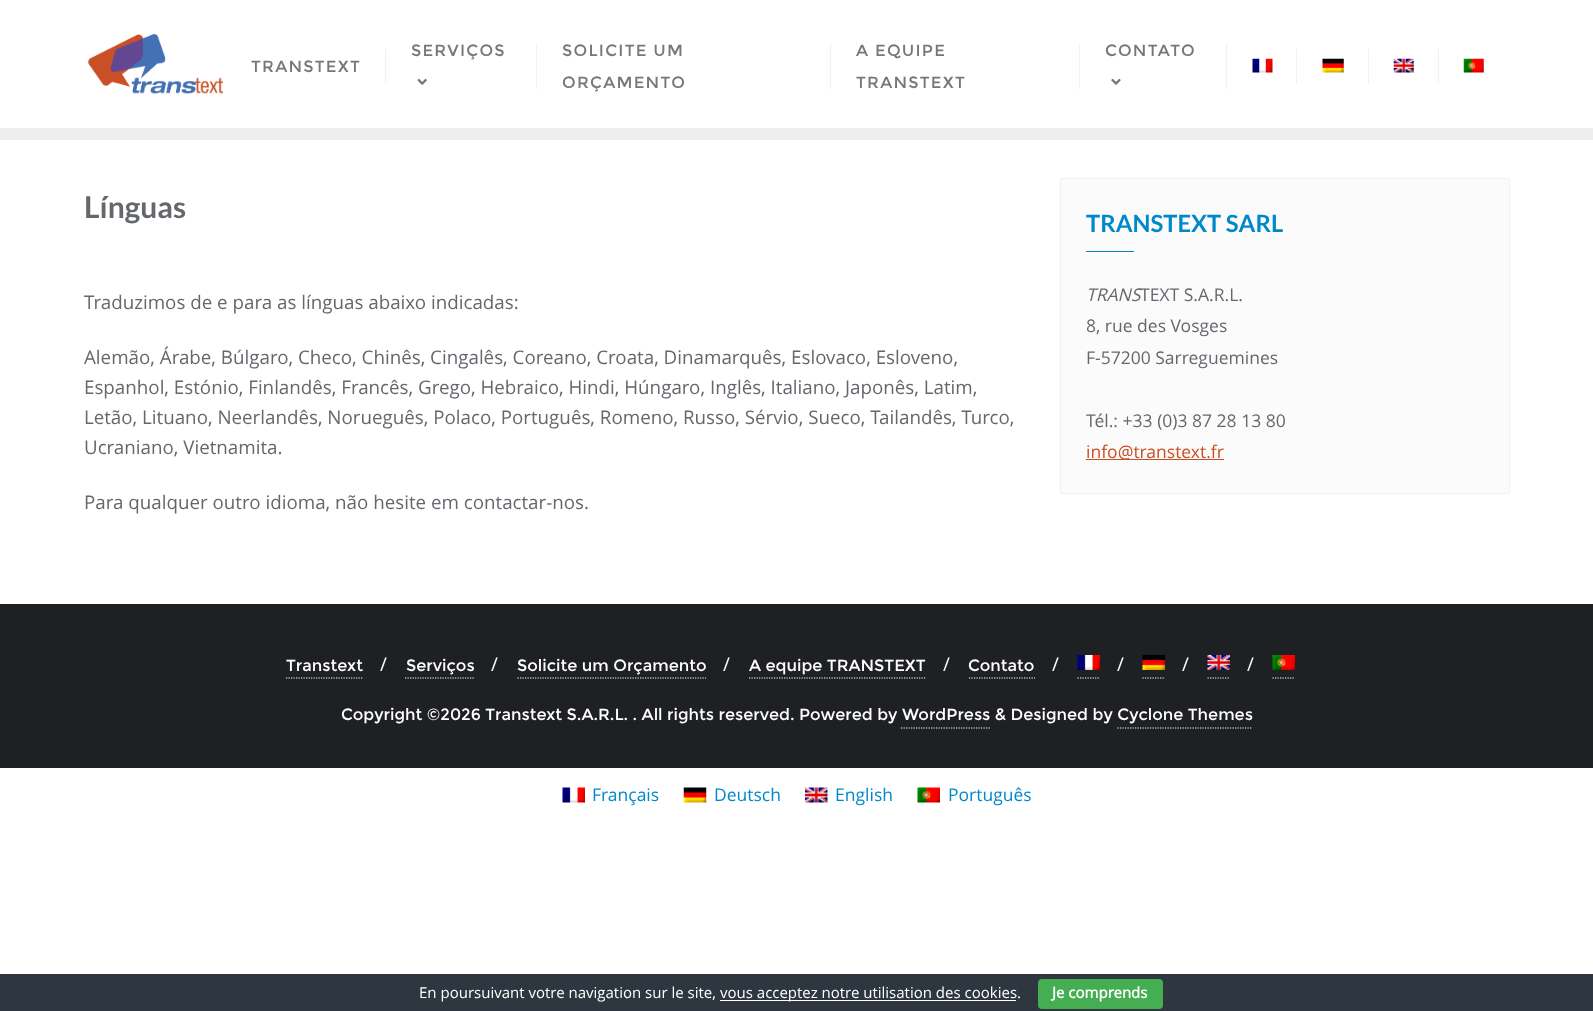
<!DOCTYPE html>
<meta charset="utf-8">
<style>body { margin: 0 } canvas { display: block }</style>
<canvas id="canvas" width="1593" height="1011"></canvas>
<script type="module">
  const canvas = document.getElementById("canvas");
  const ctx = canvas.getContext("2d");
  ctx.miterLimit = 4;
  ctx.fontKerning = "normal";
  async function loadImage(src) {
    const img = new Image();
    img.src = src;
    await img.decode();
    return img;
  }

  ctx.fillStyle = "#ffffff";
  ctx.fillRect(0, 0, 1593, 1011);
  ctx.fillStyle = "#eeeeee";
  ctx.fillRect(0, 128, 1593, 12);
  ctx.drawImage(await loadImage("img1.png"), 88, 34, 135, 60);
  ctx.letterSpacing = "1.25px";
  ctx.font = "16.25px Montserrat";
  ctx.fillStyle = "#777777";
  ctx.fillText("TRANSTEXT", 251, 72);
  ctx.fillStyle = "#f1f1f1";
  ctx.fillRect(385, 49, 1, 35);
  ctx.fillStyle = "#777777";
  ctx.fillText("SERVIÇOS", 411, 56);
  ctx.drawImage(await loadImage("img2.png"), 417, 78, 10, 7);
  ctx.fillStyle = "#f1f1f1";
  ctx.fillRect(536, 43, 1, 46);
  ctx.fillStyle = "#777777";
  ctx.fillText("SOLICITE UM", 562, 56);
  ctx.fillStyle = "#f1f1f1";
  ctx.fillRect(830, 43, 1, 46);
  ctx.fillStyle = "#777777";
  ctx.fillText("ORÇAMENTO", 562, 88);
  ctx.fillText("A EQUIPE", 856, 56);
  ctx.fillStyle = "#f1f1f1";
  ctx.fillRect(1079, 43, 1, 46);
  ctx.fillStyle = "#777777";
  ctx.fillText("TRANSTEXT", 856, 88);
  ctx.fillText("CONTATO", 1105, 56);
  ctx.drawImage(await loadImage("img3.png"), 1111, 78, 10, 7);
  ctx.fillStyle = "#f1f1f1";
  ctx.fillRect(1226, 43, 1, 46);
  ctx.drawImage(await loadImage("img4.png"), 1252, 58, 21, 15);
  ctx.fillRect(1296, 49, 1, 35);
  ctx.drawImage(await loadImage("img5.png"), 1322, 58, 22, 15);
  ctx.fillRect(1368, 49, 1, 35);
  ctx.drawImage(await loadImage("img6.png"), 1393, 58, 21, 15);
  ctx.fillRect(1438, 49, 1, 35);
  ctx.drawImage(await loadImage("img7.png"), 1463, 58, 21, 15);
  ctx.letterSpacing = "0px";
  ctx.font = "bold 30px Lato";
  ctx.fillStyle = "#64686d";
  ctx.fillText("Línguas", 84, 218);
  ctx.font = "18.75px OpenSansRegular";
  ctx.fillText("Traduzimos de e para as línguas abaixo indicadas:", 84, 309);
  ctx.fillText("Alemão, Árabe, Búlgaro, Checo, Chinês, Cingalês, Coreano, Croata, Dinamarquês, Eslovaco, Esloveno,", 84, 364);
  ctx.fillText("Espanhol, Estónio, Finlandês, Francês, Grego, Hebraico, Hindi, Húngaro, Inglês, Italiano, Japonês, Latim,", 84, 394);
  ctx.fillText("Letão, Lituano, Neerlandês, Norueguês, Polaco, Português, Romeno, Russo, Sérvio, Sueco, Tailandês, Turco,", 84, 424);
  ctx.fillText("Ucraniano, Vietnamita.", 84, 454);
  ctx.fillText("Para qualquer outro idioma, não hesite em contactar-nos.", 84, 509);
  ctx.fillStyle = "#fbfbfb";
  ctx.beginPath();
  ctx.rect(1060.5, 178.5, 449, 315);
  ctx.fill();
  ctx.strokeStyle = "#f1f1f1";
  ctx.stroke();
  ctx.font = "bold 23.75px Lato";
  ctx.fillStyle = "#0088cc";
  ctx.fillText("TRANSTEXT SARL", 1086, 232);
  ctx.fillRect(1086, 251, 48, 1);
  ctx.font = "italic 17.5px OpenSansRegular";
  ctx.fillStyle = "#64686d";
  ctx.fillText("TRANS", 1086, 301);
  ctx.font = "17.5px OpenSansRegular";
  ctx.fillText("TEXT S.A.R.L.", 1140, 301);
  ctx.fillText("8, rue des Vosges", 1086, 332);
  ctx.fillText("F-57200 Sarreguemines", 1086, 364);
  ctx.fillText("Tél.: +33 (0)3 87 28 13 80", 1086, 427);
  ctx.fillStyle = "#cb4f24";
  ctx.fillRect(1086, 459, 138, 1);
  ctx.fillText("info@transtext.fr", 1086, 458);
  ctx.fillStyle = "#1f2024";
  ctx.fillRect(0, 604, 1593, 164);
  ctx.beginPath();
  ctx.moveTo(286, 678);
  ctx.lineTo(362.5, 678);
  ctx.strokeStyle = "#ffffff";
  ctx.lineWidth = 1.2;
  ctx.setLineDash([1.25, 1.25]);
  ctx.stroke();
  ctx.font = "16.25px Montserrat";
  ctx.fillStyle = "#ffffff";
  ctx.fillText("Transtext", 286, 671);
  ctx.font = "18.75px OpenSansRegular";
  ctx.fillText("/", 380, 671);
  ctx.beginPath();
  ctx.moveTo(405, 678);
  ctx.lineTo(474, 678);
  ctx.stroke();
  ctx.font = "16.25px Montserrat";
  ctx.fillText("Serviços", 406, 671);
  ctx.font = "18.75px OpenSansRegular";
  ctx.fillText("/", 491, 671);
  ctx.beginPath();
  ctx.moveTo(517.5, 678);
  ctx.lineTo(706, 678);
  ctx.stroke();
  ctx.font = "16.25px Montserrat";
  ctx.fillText("Solicite um Orçamento", 517, 671);
  ctx.font = "18.75px OpenSansRegular";
  ctx.fillText("/", 723, 671);
  ctx.beginPath();
  ctx.moveTo(749, 678);
  ctx.lineTo(926, 678);
  ctx.stroke();
  ctx.font = "16.25px Montserrat";
  ctx.fillText("A equipe TRANSTEXT", 749, 671);
  ctx.font = "18.75px OpenSansRegular";
  ctx.fillText("/", 943, 671);
  ctx.beginPath();
  ctx.moveTo(969, 678);
  ctx.lineTo(1035, 678);
  ctx.stroke();
  ctx.font = "16.25px Montserrat";
  ctx.fillText("Contato", 968, 671);
  ctx.font = "18.75px OpenSansRegular";
  ctx.fillText("/", 1052, 671);
  ctx.beginPath();
  ctx.moveTo(1077.5, 678);
  ctx.lineTo(1100, 678);
  ctx.stroke();
  ctx.drawImage(await loadImage("img8.png"), 1077, 655, 23, 15);
  ctx.fillText("/", 1117, 671);
  ctx.beginPath();
  ctx.moveTo(1142.5, 678);
  ctx.lineTo(1165, 678);
  ctx.stroke();
  ctx.drawImage(await loadImage("img9.png"), 1142, 655, 23, 15);
  ctx.fillText("/", 1182, 671);
  ctx.beginPath();
  ctx.moveTo(1207.5, 678);
  ctx.lineTo(1230, 678);
  ctx.stroke();
  ctx.drawImage(await loadImage("img10.png"), 1207, 655, 23, 15);
  ctx.fillText("/", 1247, 671);
  ctx.beginPath();
  ctx.moveTo(1272.5, 678);
  ctx.lineTo(1295, 678);
  ctx.stroke();
  ctx.drawImage(await loadImage("img11.png"), 1272, 655, 23, 15);
  ctx.font = "16.25px Montserrat";
  ctx.fillText("Copyright ©2026 Transtext S.A.R.L. . All rights reserved. Powered by WordPress & Designed by Cyclone Themes", 341, 720);
  ctx.beginPath();
  ctx.moveTo(901, 728);
  ctx.lineTo(990, 728);
  ctx.stroke();
  ctx.beginPath();
  ctx.moveTo(1117.5, 728);
  ctx.lineTo(1252.5, 728);
  ctx.stroke();
  ctx.drawImage(await loadImage("img12.png"), 562, 787, 23, 16);
  ctx.font = "17.5px OpenSansRegular";
  ctx.fillStyle = "#0088cc";
  ctx.fillText("Français", 592, 801);
  ctx.drawImage(await loadImage("img13.png"), 683, 787, 24, 16);
  ctx.fillText("Deutsch", 714, 801);
  ctx.drawImage(await loadImage("img14.png"), 805, 787, 23, 16);
  ctx.fillText("English", 835, 801);
  ctx.drawImage(await loadImage("img15.png"), 917, 787, 23, 16);
  ctx.fillText("Português", 948, 801);
  ctx.fillStyle = "#2e363f";
  ctx.fillRect(0, 974, 1593, 37);
  ctx.font = "15px OpenSansRegular";
  ctx.fillStyle = "#ffffff";
  ctx.fillText("En poursuivant votre navigation sur le site,", 419, 998);
  ctx.fillRect(720, 1000, 296, 1);
  ctx.fillText("vous acceptez notre utilisation des cookies.", 720, 998);
  ctx.fillStyle = "#45ae52";
  ctx.beginPath();
  ctx.roundRect(1038, 979, 125, 30, 4);
  ctx.fill();
  ctx.font = "bold 15px OpenSansRegular";
  ctx.fillStyle = "#ffffff";
  ctx.fillText("Je comprends", 1052, 998);
</script>
